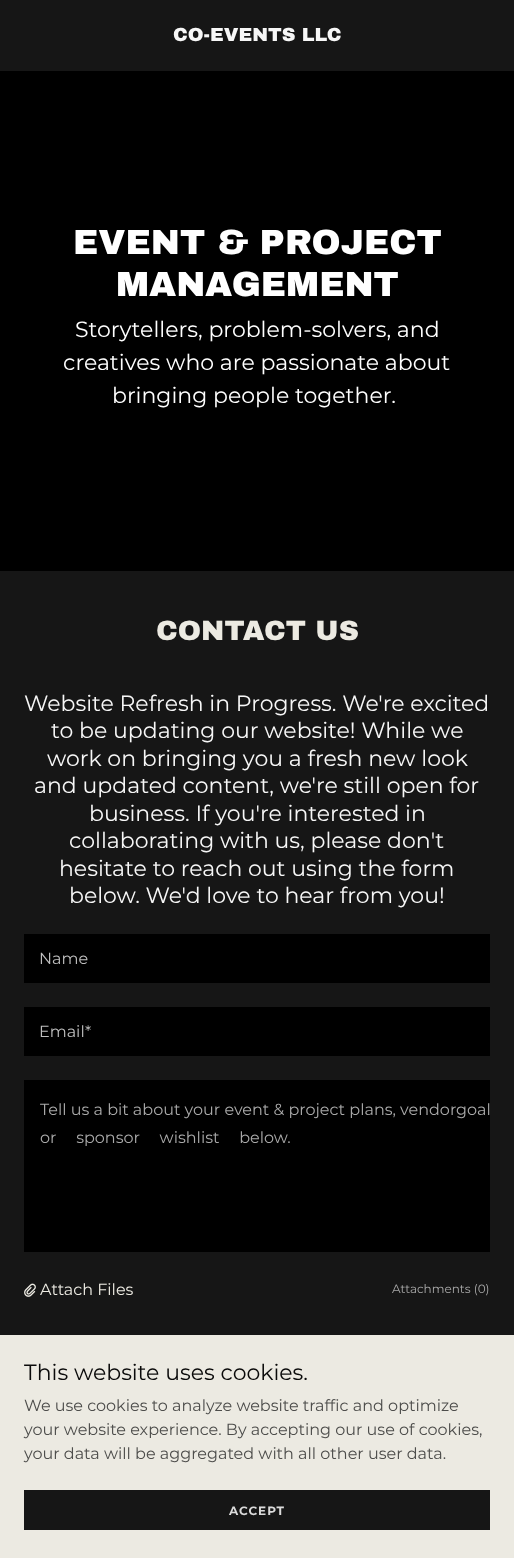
<!DOCTYPE html>
<meta charset="utf-8">
<style>body { margin: 0 } canvas { display: block }</style>
<canvas id="canvas" width="514" height="1558"></canvas>
<script type="module">
  const canvas = document.getElementById("canvas");
  const ctx = canvas.getContext("2d");
  ctx.miterLimit = 4;
  ctx.fontKerning = "normal";
  async function loadImage(src) {
    const img = new Image();
    img.src = src;
    await img.decode();
    return img;
  }

  ctx.fillStyle = "#161616";
  ctx.fillRect(0, 0, 514, 1558);
  ctx.font = "900 19px Archivo Black";
  ctx.fillStyle = "#f7f7f7";
  ctx.fillText("CO-EVENTS LLC", 173, 41);
  ctx.fillStyle = "#000000";
  ctx.fillRect(0, 71, 514, 500);
  ctx.font = "900 35px Archivo Black";
  ctx.fillStyle = "#ffffff";
  ctx.fillText("EVENT & PROJECT", 73, 254);
  ctx.fillText("MANAGEMENT", 116, 296);
  ctx.font = "22px Montserrat";
  ctx.fillText("Storytellers, problem-solvers, and", 75, 337);
  ctx.fillText("creatives who are passionate about", 63, 370);
  ctx.fillText("bringing people together.", 112, 403);
  ctx.font = "900 28px Archivo Black";
  ctx.fillStyle = "#eceae2";
  ctx.fillText("CONTACT US", 156, 640);
  ctx.font = "22px Montserrat";
  ctx.fillStyle = "#f7f7f7";
  ctx.fillText("Website Refresh in Progress. We're excited", 24, 711);
  ctx.fillText("to be updating our website! While we", 51, 738);
  ctx.fillText("work on bringing you a fresh new look", 47, 766);
  ctx.fillText("and updated content, we're still open for", 34, 793);
  ctx.fillText("business. If you're interested in", 89, 821);
  ctx.fillText("collaborating with us, please don't", 69, 848);
  ctx.fillText("hesitate to reach out using the form", 59, 876);
  ctx.fillText("below. We'd love to hear from you!", 69, 903);
  ctx.fillStyle = "#000000";
  ctx.fillRect(24, 934, 466, 49);
  ctx.font = "16px Montserrat";
  ctx.fillStyle = "#bfbfbf";
  ctx.fillText("Name", 39, 964);
  ctx.fillStyle = "#000000";
  ctx.fillRect(24, 1007, 466, 49);
  ctx.fillStyle = "#bfbfbf";
  ctx.fillText("Email*", 39, 1037);
  ctx.fillStyle = "#000000";
  ctx.fillRect(24, 1080, 466, 172);
  ctx.fillStyle = "#a9a9a9";
  ctx.fillText("Tell us a bit about your event & project plans, vendorgoal", 40, 1115);
  ctx.wordSpacing = "15.5px";
  ctx.fillText("or sponsor wishlist below.", 40, 1143);
  ctx.drawImage(await loadImage("img1.png"), 24, 1283, 12, 14);
  ctx.wordSpacing = "0px";
  ctx.fillStyle = "#eceae2";
  ctx.fillText("Attach Files", 40, 1295);
  ctx.font = "12px Montserrat";
  ctx.fillStyle = "#a9a9a9";
  ctx.fillText("Attachments (0)", 392, 1293);
  ctx.fillStyle = "#eceae2";
  ctx.fillRect(0, 1335, 514, 223);
  ctx.font = "22px Montserrat";
  ctx.fillStyle = "#0a0a0a";
  ctx.fillText("This website uses cookies.", 24, 1380);
  ctx.font = "16px Montserrat";
  ctx.fillStyle = "#4d4d4b";
  ctx.fillText("We use cookies to analyze website traffic and optimize", 24, 1411);
  ctx.fillText("your website experience. By accepting our use of cookies,", 24, 1435);
  ctx.fillText("your data will be aggregated with all other user data.", 24, 1459);
  ctx.fillStyle = "#161616";
  ctx.fillRect(24, 1490, 466, 40);
  ctx.letterSpacing = "1px";
  ctx.font = "bold 12px Montserrat";
  ctx.fillStyle = "#dbdbdb";
  ctx.fillText("ACCEPT", 229, 1515);
</script>
